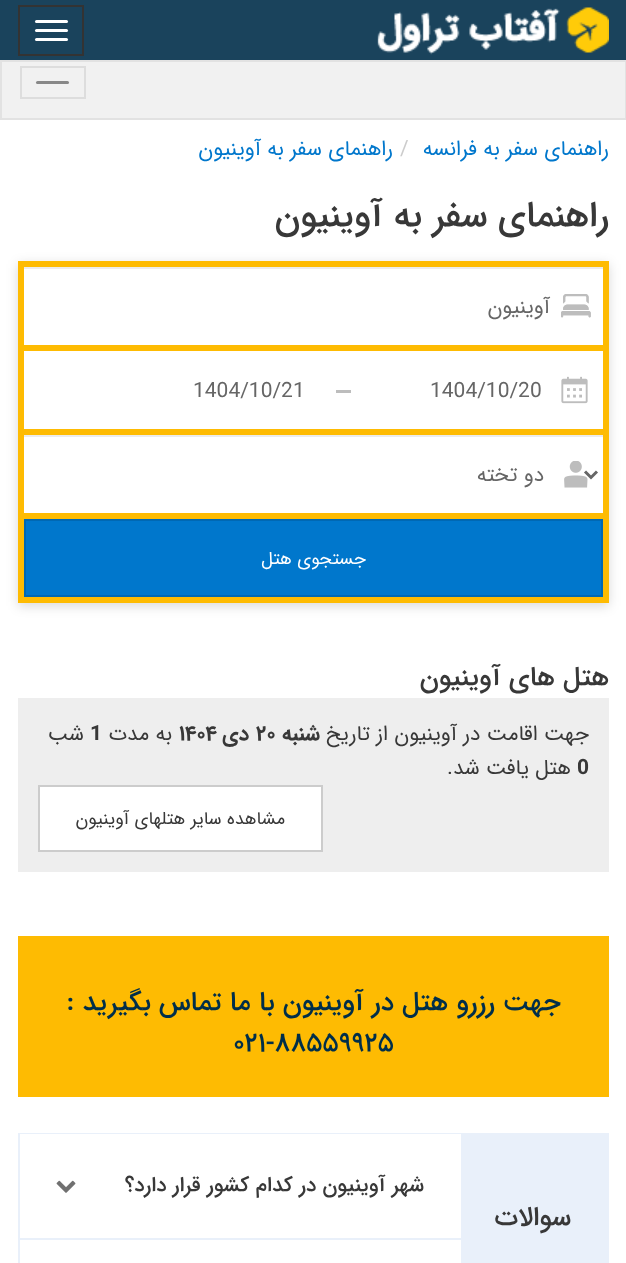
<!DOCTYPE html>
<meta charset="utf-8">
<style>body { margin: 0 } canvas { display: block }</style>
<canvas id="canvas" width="626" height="1263"></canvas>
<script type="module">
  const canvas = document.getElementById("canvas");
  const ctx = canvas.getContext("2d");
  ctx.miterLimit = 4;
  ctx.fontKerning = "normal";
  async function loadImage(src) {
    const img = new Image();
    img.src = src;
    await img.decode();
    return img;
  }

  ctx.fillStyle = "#ffffff";
  ctx.fillRect(0, 0, 626, 1263);
  ctx.fillStyle = "#1a435c";
  ctx.fillRect(0, 0, 626, 60);
  ctx.drawImage(await loadImage("img1.png"), 377, 7, 232, 48);
  ctx.strokeStyle = "#333333";
  ctx.lineWidth = 2;
  ctx.strokeRect(19, 6, 64, 49);
  ctx.fillStyle = "#ffffff";
  ctx.beginPath();
  ctx.roundRect(35, 20, 33, 3, 1.5);
  ctx.fill();
  ctx.beginPath();
  ctx.roundRect(35, 29, 33, 3, 1.5);
  ctx.fill();
  ctx.beginPath();
  ctx.roundRect(35, 38, 33, 3, 1.5);
  ctx.fill();
  ctx.fillStyle = "#f1f1f1";
  ctx.beginPath();
  ctx.rect(1, 61, 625, 58);
  ctx.fill();
  ctx.strokeStyle = "#e2e2e2";
  ctx.stroke();
  ctx.strokeStyle = "#dddddd";
  ctx.strokeRect(21, 67, 64, 31);
  ctx.fillStyle = "#888888";
  ctx.beginPath();
  ctx.roundRect(36, 81, 33, 3, 1.5);
  ctx.fill();
  ctx.direction = "rtl";
  ctx.font = "21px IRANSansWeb";
  ctx.fillStyle = "#0077cc";
  ctx.fillText("راهنمای سفر به فرانسه", 609, 155);
  ctx.direction = "ltr";
  ctx.fillStyle = "#cccccc";
  ctx.fillText("/", 400, 155);
  ctx.direction = "rtl";
  ctx.fillStyle = "#0077cc";
  ctx.fillText("راهنمای سفر به آوینیون", 393, 155);
  ctx.font = "500 36px IRANSansWeb";
  ctx.fillStyle = "#383838";
  ctx.fillText("راهنمای سفر به آوینیون", 609, 226);
  ctx.fillStyle = "rgba(0, 0, 0, 0.15)";
  ctx.filter = "blur(6px)";
  ctx.beginPath();
  ctx.rect(18, 264, 591, 342);
  ctx.fill();
  ctx.filter = "none";
  ctx.fillStyle = "#febb02";
  ctx.fillRect(18, 261, 591, 342);
  ctx.fillStyle = "#ffffff";
  ctx.fillRect(24, 269, 579, 76);
  ctx.drawImage(await loadImage("img2.png"), 561, 294, 30, 24);
  ctx.drawImage(await loadImage("img3.png"), 561, 294, 30, 24);
  ctx.fillStyle = "#ececec";
  ctx.fillRect(24, 267, 579, 2);
  ctx.font = "21px IRANSansWeb";
  ctx.fillStyle = "#666666";
  ctx.fillText("آوینیون", 550, 313);
  ctx.fillStyle = "#ffffff";
  ctx.fillRect(24, 351, 579, 78);
  ctx.drawImage(await loadImage("img4.png"), 561, 376, 27, 28);
  ctx.direction = "ltr";
  ctx.fillStyle = "#666666";
  ctx.fillText("1404/10/20", 430, 397);
  ctx.fillStyle = "#bdbdbd";
  ctx.fillRect(336, 390, 15, 3);
  ctx.fillStyle = "#666666";
  ctx.fillText("1404/10/21", 193, 397);
  ctx.fillStyle = "#ffffff";
  ctx.fillRect(24, 437, 579, 76);
  ctx.drawImage(await loadImage("img5.png"), 564, 461, 24, 27);
  ctx.fillStyle = "#ececec";
  ctx.fillRect(24, 435, 579, 2);
  ctx.beginPath();
  ctx.moveTo(585, 471.5);
  ctx.lineTo(591, 477.5);
  ctx.lineTo(597, 471.5);
  ctx.strokeStyle = "#666666";
  ctx.lineWidth = 3;
  ctx.stroke();
  ctx.direction = "rtl";
  ctx.fillStyle = "#666666";
  ctx.fillText("دو تخته", 544, 481);
  ctx.fillStyle = "#0077cc";
  ctx.beginPath();
  ctx.rect(25, 520, 577, 76);
  ctx.fill();
  ctx.strokeStyle = "#0068b3";
  ctx.lineWidth = 2;
  ctx.stroke();
  ctx.font = "18px IRANSansWeb";
  ctx.fillStyle = "#ffffff";
  ctx.fillText("جستجوی هتل", 366, 564);
  ctx.font = "500 27px IRANSansWeb";
  ctx.fillStyle = "#383838";
  ctx.fillText("هتل های آوینیون", 609, 685);
  ctx.fillStyle = "#eeeeee";
  ctx.fillRect(18, 698, 591, 174);
  ctx.font = "21px IRANSansWeb";
  ctx.fillStyle = "#383838";
  ctx.fillText("جهت اقامت در آوینیون از تاریخ", 589, 740);
  ctx.font = "bold 21px IRANSansWeb";
  ctx.fillText("شنبه", 320, 740);
  ctx.direction = "ltr";
  ctx.fillText("۲۰", 256, 740);
  ctx.direction = "rtl";
  ctx.fillText("دی", 249, 740);
  ctx.direction = "ltr";
  ctx.fillText("۱۴۰۴", 179, 740);
  ctx.direction = "rtl";
  ctx.font = "21px IRANSansWeb";
  ctx.fillText("به مدت", 172, 740);
  ctx.direction = "ltr";
  ctx.font = "bold 21px IRANSansWeb";
  ctx.fillText("1", 90, 740);
  ctx.direction = "rtl";
  ctx.font = "21px IRANSansWeb";
  ctx.fillText("شب", 84, 740);
  ctx.direction = "ltr";
  ctx.font = "bold 21px IRANSansWeb";
  ctx.fillText("0", 577, 774);
  ctx.direction = "rtl";
  ctx.font = "21px IRANSansWeb";
  ctx.fillText("هتل یافت شد.", 571, 774);
  ctx.fillStyle = "#ffffff";
  ctx.beginPath();
  ctx.rect(39, 786, 283, 65);
  ctx.fill();
  ctx.strokeStyle = "#cccccc";
  ctx.stroke();
  ctx.font = "18px IRANSansWeb";
  ctx.fillStyle = "#383838";
  ctx.fillText("مشاهده سایر هتلهای آوینیون", 285, 824);
  ctx.fillStyle = "#febb02";
  ctx.fillRect(18, 936, 591, 161);
  ctx.font = "500 27px IRANSansWeb";
  ctx.fillStyle = "#002e4a";
  ctx.fillText("جهت رزرو هتل در آوینیون با ما تماس بگیرید :", 561, 1010);
  ctx.direction = "ltr";
  ctx.fillText("۰۲۱-۸۸۵۵۹۹۲۵", 233, 1051);
  ctx.fillStyle = "#e9f0fa";
  ctx.fillRect(18, 1133, 591, 130);
  ctx.fillStyle = "#ffffff";
  ctx.fillRect(20, 1134, 441, 129);
  ctx.direction = "rtl";
  ctx.font = "500 21px IRANSansWeb";
  ctx.fillStyle = "#383838";
  ctx.fillText("شهر آوینیون در کدام کشور قرار دارد؟", 424, 1191);
  ctx.drawImage(await loadImage("img6.png"), 56, 1180, 20, 13);
  ctx.fillStyle = "#e9f0fa";
  ctx.fillRect(20, 1238, 441, 2);
  ctx.font = "500 27px IRANSansWeb";
  ctx.fillStyle = "#383838";
  ctx.fillText("سوالات", 571, 1225);
</script>
